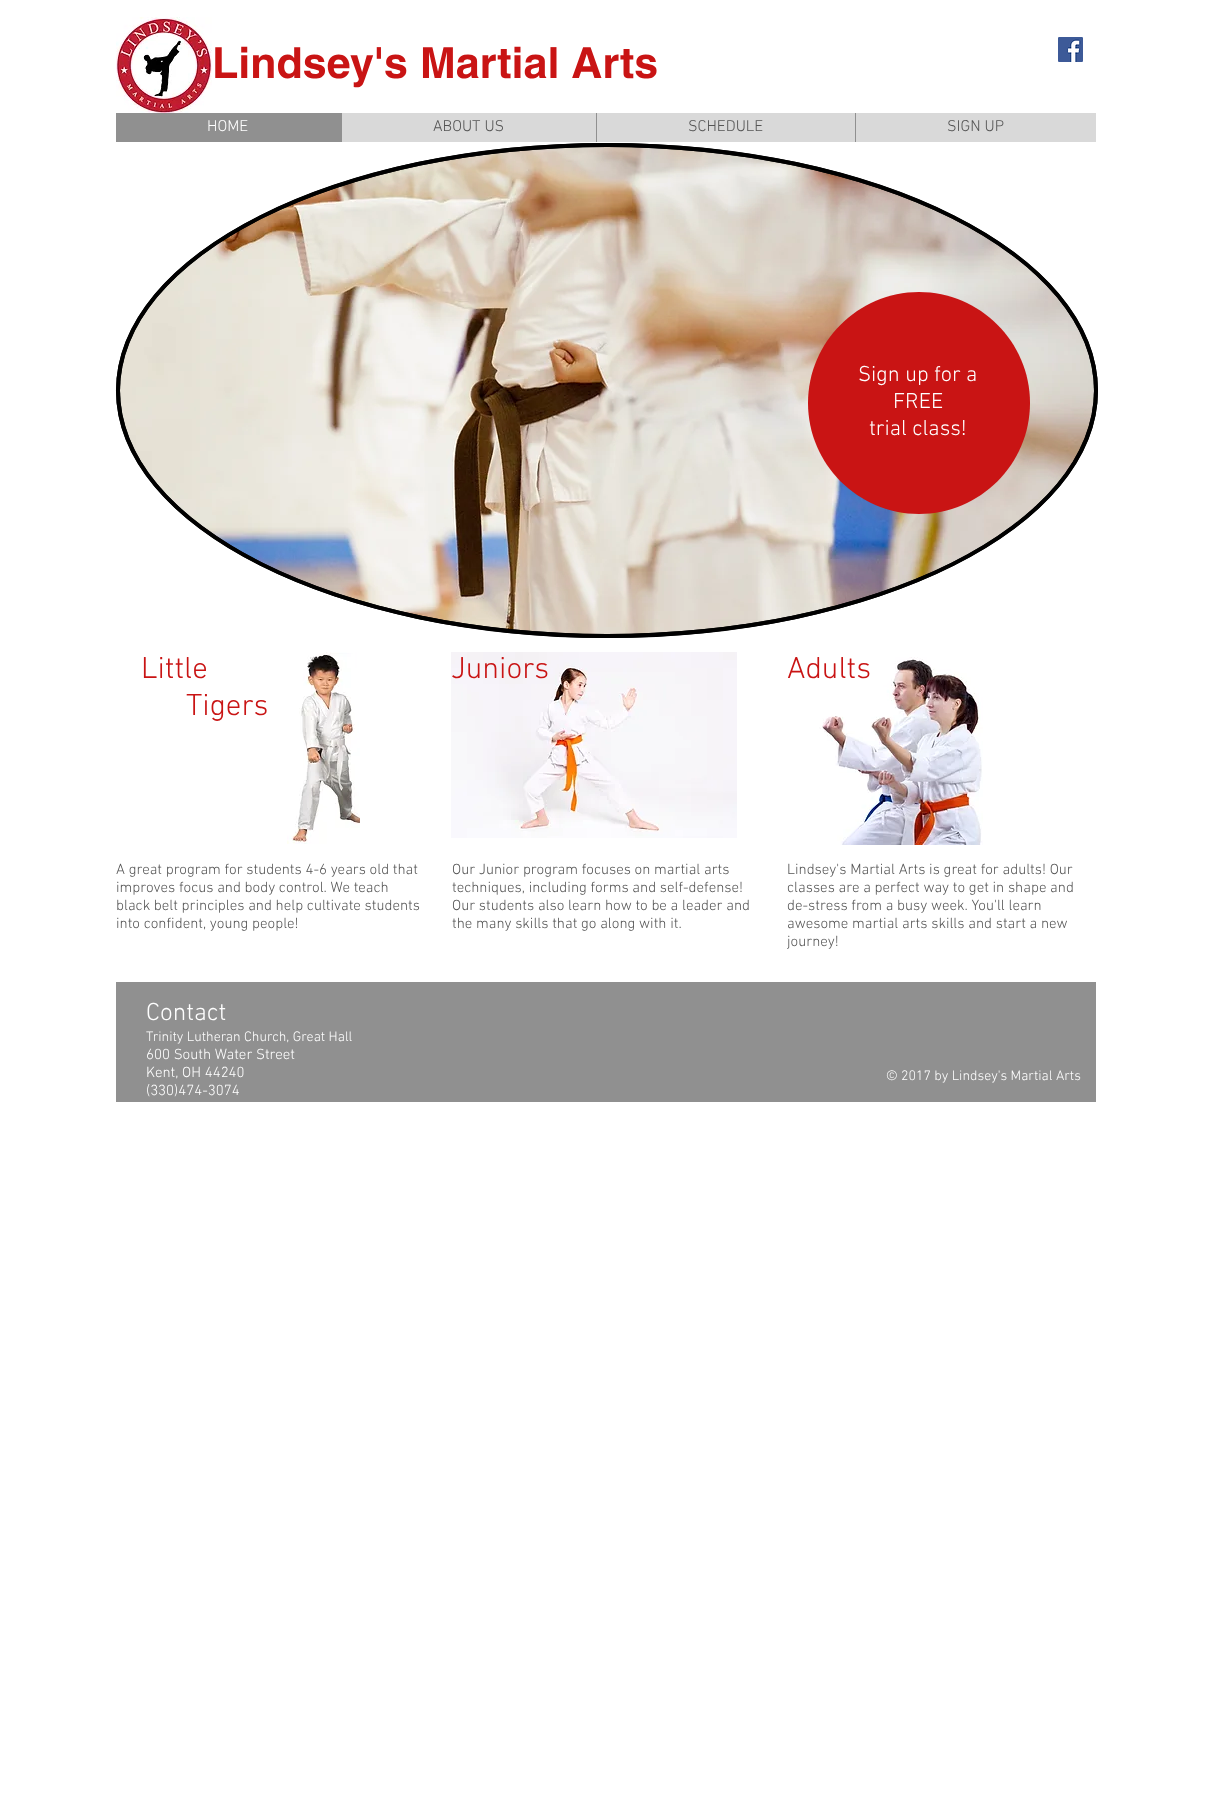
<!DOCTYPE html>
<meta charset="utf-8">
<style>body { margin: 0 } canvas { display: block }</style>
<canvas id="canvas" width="1211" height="1817"></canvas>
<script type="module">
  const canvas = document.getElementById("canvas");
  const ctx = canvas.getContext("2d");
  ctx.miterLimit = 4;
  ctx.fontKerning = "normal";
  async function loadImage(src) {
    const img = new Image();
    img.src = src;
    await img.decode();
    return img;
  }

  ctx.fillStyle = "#ffffff";
  ctx.fillRect(0, 0, 1211, 1817);
  ctx.drawImage(await loadImage("img1.png"), 116, 17, 96, 96);
  ctx.font = "bold 43px helvetica";
  ctx.fillStyle = "#c91414";
  ctx.fillText("Lindsey's Martial Arts", 212, 78);
  ctx.drawImage(await loadImage("img2.png"), 1058, 37, 25, 25);
  ctx.fillStyle = "#d9d9d9";
  ctx.fillRect(342, 113, 754, 29);
  ctx.fillStyle = "#909090";
  ctx.fillRect(116, 113, 226, 29);
  ctx.font = "300 16px 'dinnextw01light'";
  ctx.fillStyle = "#ffffff";
  ctx.fillText("HOME", 207, 131);
  ctx.fillStyle = "#555555";
  ctx.fillText("ABOUT US", 433, 131);
  ctx.fillStyle = "#909090";
  ctx.fillRect(596, 113, 1, 29);
  ctx.fillStyle = "#555555";
  ctx.fillText("SCHEDULE", 688, 131);
  ctx.fillStyle = "#909090";
  ctx.fillRect(855, 113, 1, 29);
  ctx.fillStyle = "#555555";
  ctx.fillText("SIGN UP", 947, 131);
  ctx.fillStyle = "#000000";
  ctx.beginPath();
  ctx.ellipse(607, 390.5, 491, 247.5, 0, 0, Math.PI * 2);
  ctx.fill();
  ctx.beginPath();
  ctx.moveTo(607, 145);
  ctx.bezierCurveTo(877, 145, 1096, 255, 1096, 390.5);
  ctx.bezierCurveTo(1096, 526, 877, 636, 607, 636);
  ctx.bezierCurveTo(337, 636, 118, 526, 118, 390.5);
  ctx.bezierCurveTo(118, 255, 337, 145, 607, 145);
  ctx.closePath();
  ctx.strokeStyle = "#000000";
  ctx.lineWidth = 4;
  ctx.stroke();
  ctx.drawImage(await loadImage("img3.png"), 120, 147, 974, 487);
  ctx.fillStyle = "#c91414";
  ctx.beginPath();
  ctx.moveTo(1030, 403);
  ctx.bezierCurveTo(1030, 464, 980, 514, 919, 514);
  ctx.bezierCurveTo(858, 514, 808, 464, 808, 403);
  ctx.bezierCurveTo(808, 342, 858, 292, 919, 292);
  ctx.bezierCurveTo(980, 292, 1030, 342, 1030, 403);
  ctx.closePath();
  ctx.fill();
  ctx.font = "300 22px 'dinnextw01light'";
  ctx.fillStyle = "#ffffff";
  ctx.fillText("Sign up for a", 858, 381);
  ctx.fillText("FREE", 893, 408);
  ctx.fillText("trial class!", 869, 435);
  ctx.font = "300 31px 'dinnextw01light'";
  ctx.fillStyle = "#c91414";
  ctx.fillText("Little", 141, 678);
  ctx.fillText("Tigers", 186, 715);
  ctx.drawImage(await loadImage("img4.png"), 287, 652, 73, 192);
  ctx.drawImage(await loadImage("img5.png"), 451, 652, 286, 186);
  ctx.fillText("Juniors", 451, 678);
  ctx.drawImage(await loadImage("img6.png"), 819, 657, 164, 188);
  ctx.fillText("Adults", 787, 678);
  ctx.font = "300 15px 'dinnextw01light'";
  ctx.fillStyle = "#555555";
  ctx.fillText("A great program for students 4-6 years old that", 116, 874);
  ctx.fillText("improves focus and body control. We teach", 116, 892);
  ctx.fillText("black belt principles and help cultivate students", 116, 910);
  ctx.fillText("into confident, young people!", 116, 928);
  ctx.fillText("Our Junior program focuses on martial arts", 452, 874);
  ctx.fillText("techniques, including forms and self-defense!", 452, 892);
  ctx.fillText("Our students also learn how to be a leader and", 452, 910);
  ctx.fillText("the many skills that go along with it.", 452, 928);
  ctx.fillText("Lindsey's Martial Arts is great for adults! Our", 787, 874);
  ctx.fillText("classes are a perfect way to get in shape and", 787, 892);
  ctx.fillText("de-stress from a busy week. You'll learn", 787, 910);
  ctx.fillText("awesome martial arts skills and start a new", 787, 928);
  ctx.fillText("journey!", 787, 946);
  ctx.fillStyle = "#909090";
  ctx.fillRect(116, 982, 980, 120);
  ctx.font = "300 25px 'dinnextw01light'";
  ctx.fillStyle = "#ffffff";
  ctx.fillText("Contact", 146, 1020);
  ctx.font = "300 14px 'dinnextw01light'";
  ctx.fillText("Trinity Lutheran Church, Great Hall", 146, 1041);
  ctx.font = "300 15px 'dinnextw01light'";
  ctx.fillText("600 South Water Street", 146, 1059);
  ctx.fillText("Kent, OH 44240", 146, 1077);
  ctx.fillText("(330)474-3074", 146, 1095);
  ctx.font = "300 14px 'dinnextw01light'";
  ctx.fillText("© 2017 by Lindsey's Martial Arts", 886, 1080);
</script>
